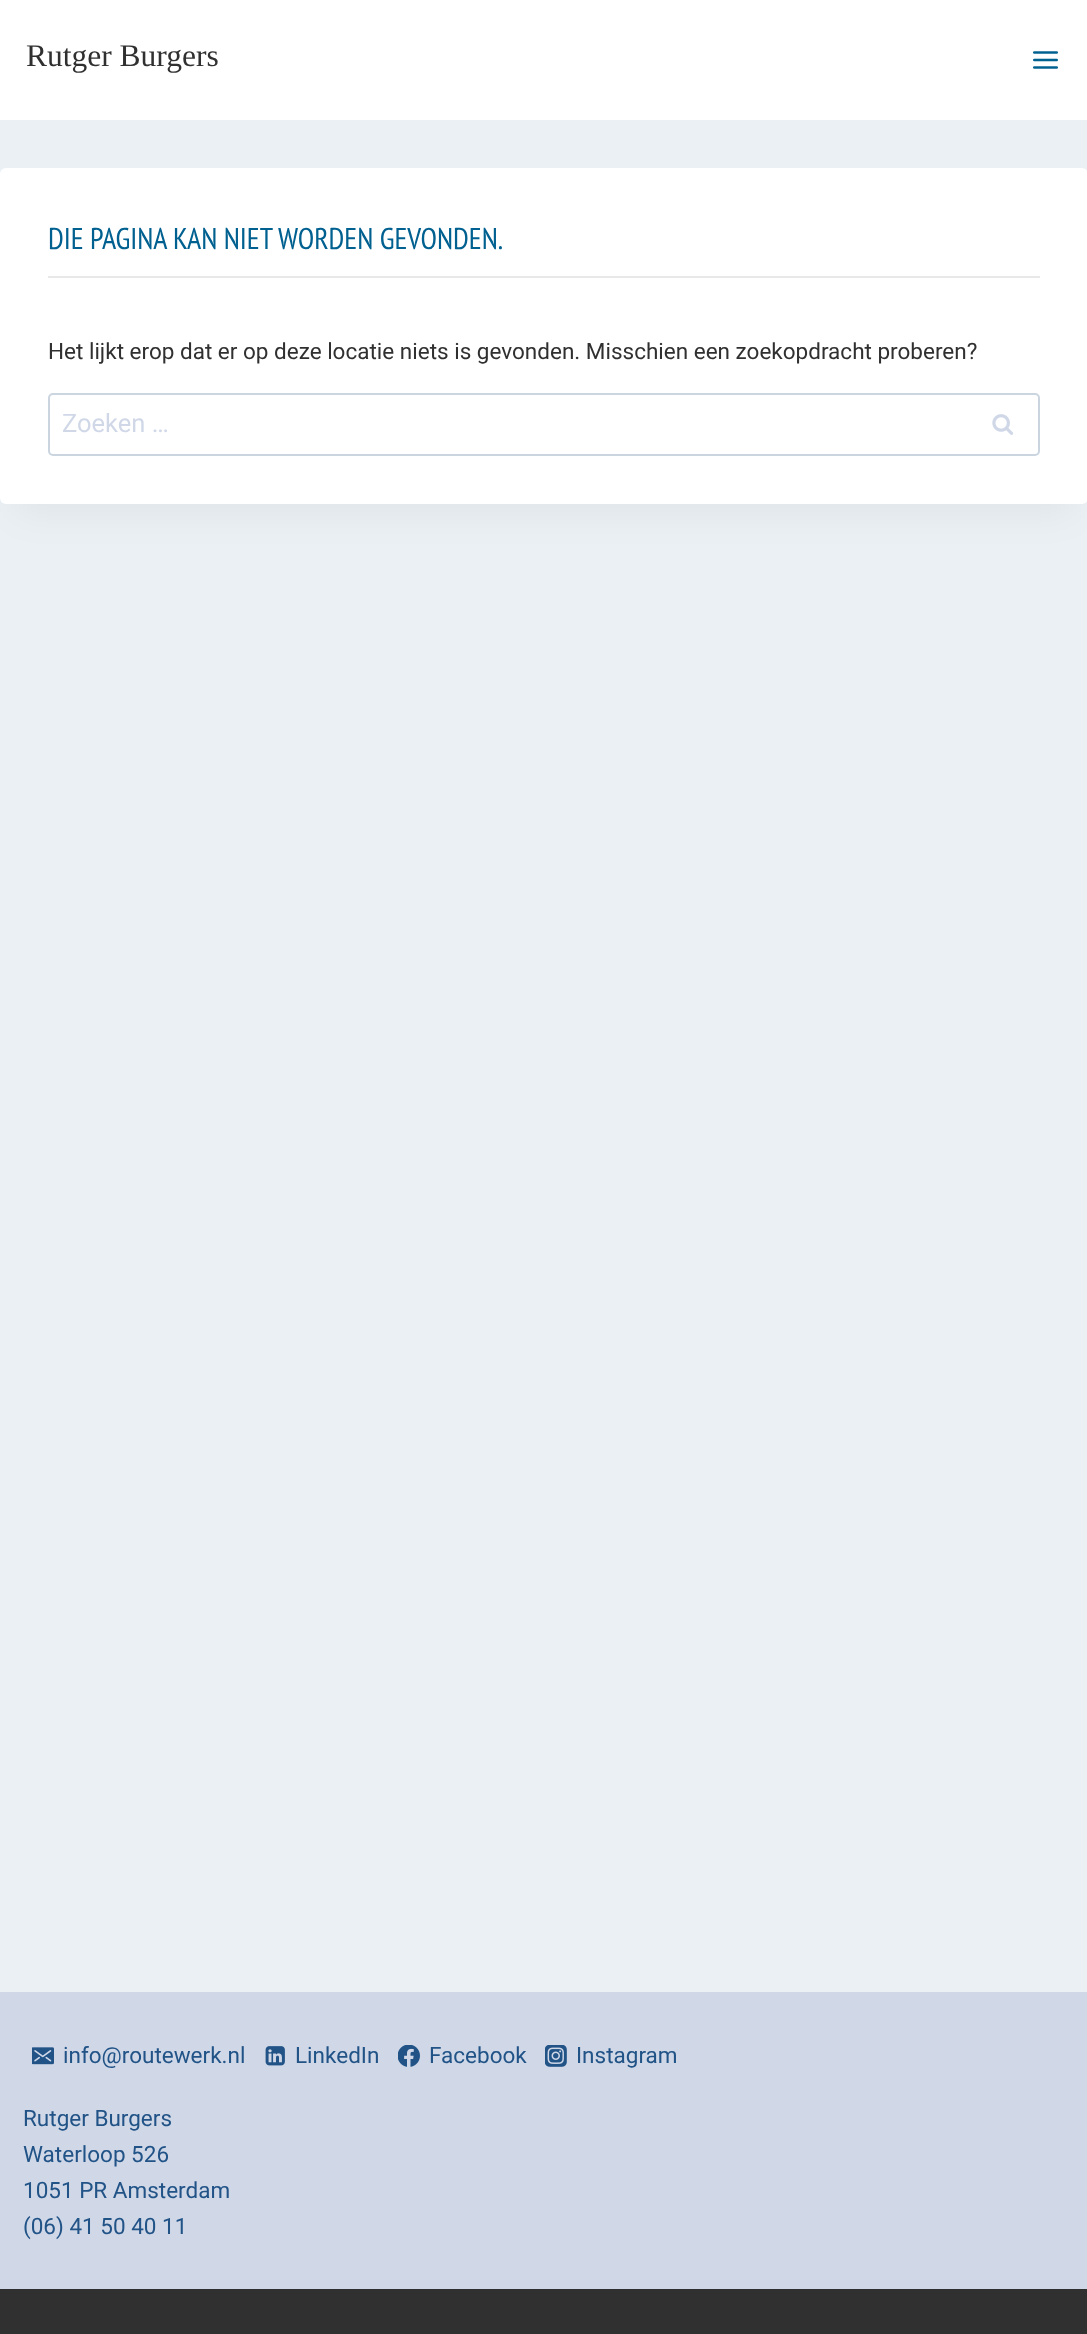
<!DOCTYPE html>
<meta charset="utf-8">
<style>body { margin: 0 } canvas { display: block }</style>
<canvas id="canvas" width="1087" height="2334"></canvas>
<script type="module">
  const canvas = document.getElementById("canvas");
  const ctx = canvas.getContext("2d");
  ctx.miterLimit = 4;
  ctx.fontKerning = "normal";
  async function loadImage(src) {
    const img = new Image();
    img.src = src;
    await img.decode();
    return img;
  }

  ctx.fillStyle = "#ebf0f4";
  ctx.fillRect(0, 0, 1087, 2334);
  ctx.fillStyle = "#ffffff";
  ctx.fillRect(0, 0, 1087, 120);
  ctx.font = "31.5px Liberation Serif";
  ctx.fillStyle = "#303030";
  ctx.fillText("Rutger Burgers", 26, 66);
  ctx.drawImage(await loadImage("img1.png"), 1033, 51, 25, 18);
  ctx.fillStyle = "rgba(0, 0, 0, 0.05)";
  ctx.filter = "blur(19px)";
  ctx.beginPath();
  ctx.rect(15, 206, 1058, 306);
  ctx.fill();
  ctx.filter = "none";
  ctx.fillStyle = "#ffffff";
  ctx.beginPath();
  ctx.roundRect(0, 168, 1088, 336, 6);
  ctx.fill();
  ctx.fillStyle = "#e8e8e8";
  ctx.fillRect(48, 276, 992, 2);
  ctx.font = "30px PT Sans Narrow";
  ctx.fillStyle = "#006090";
  ctx.fillText("DIE PAGINA KAN NIET WORDEN GEVONDEN.", 48, 249);
  ctx.font = "22.5px Roboto";
  ctx.fillStyle = "#303030";
  ctx.fillText("Het lijkt erop dat er op deze locatie niets is gevonden. Misschien een zoekopdracht proberen?", 48, 359);
  ctx.beginPath();
  ctx.roundRect(49, 394, 990, 61, 4);
  ctx.strokeStyle = "#cbd5e0";
  ctx.lineWidth = 2;
  ctx.stroke();
  ctx.font = "25.5px Roboto";
  ctx.fillStyle = "#d0d8e8";
  ctx.fillText("Zoeken …", 62, 432);
  ctx.drawImage(await loadImage("img2.png"), 992, 414, 22, 21);
  ctx.fillRect(0, 1992, 1087, 297);
  ctx.drawImage(await loadImage("img3.png"), 32, 2047, 22, 18);
  ctx.font = "22.5px Roboto";
  ctx.fillStyle = "#215387";
  ctx.fillText("info@routewerk.nl", 63, 2063);
  ctx.drawImage(await loadImage("img4.png"), 265, 2046, 20, 20);
  ctx.fillText("LinkedIn", 295, 2063);
  ctx.drawImage(await loadImage("img5.png"), 398, 2045, 22, 22);
  ctx.fillText("Facebook", 429, 2063);
  ctx.drawImage(await loadImage("img6.png"), 545, 2045, 22, 22);
  ctx.fillText("Instagram", 576, 2063);
  ctx.fillText("Rutger Burgers", 23, 2126);
  ctx.fillText("Waterloop 526", 23, 2162);
  ctx.fillText("1051 PR Amsterdam", 23, 2198);
  ctx.fillText("(06) 41 50 40 11", 23, 2234);
  ctx.fillStyle = "#303030";
  ctx.fillRect(0, 2289, 1087, 45);
</script>
